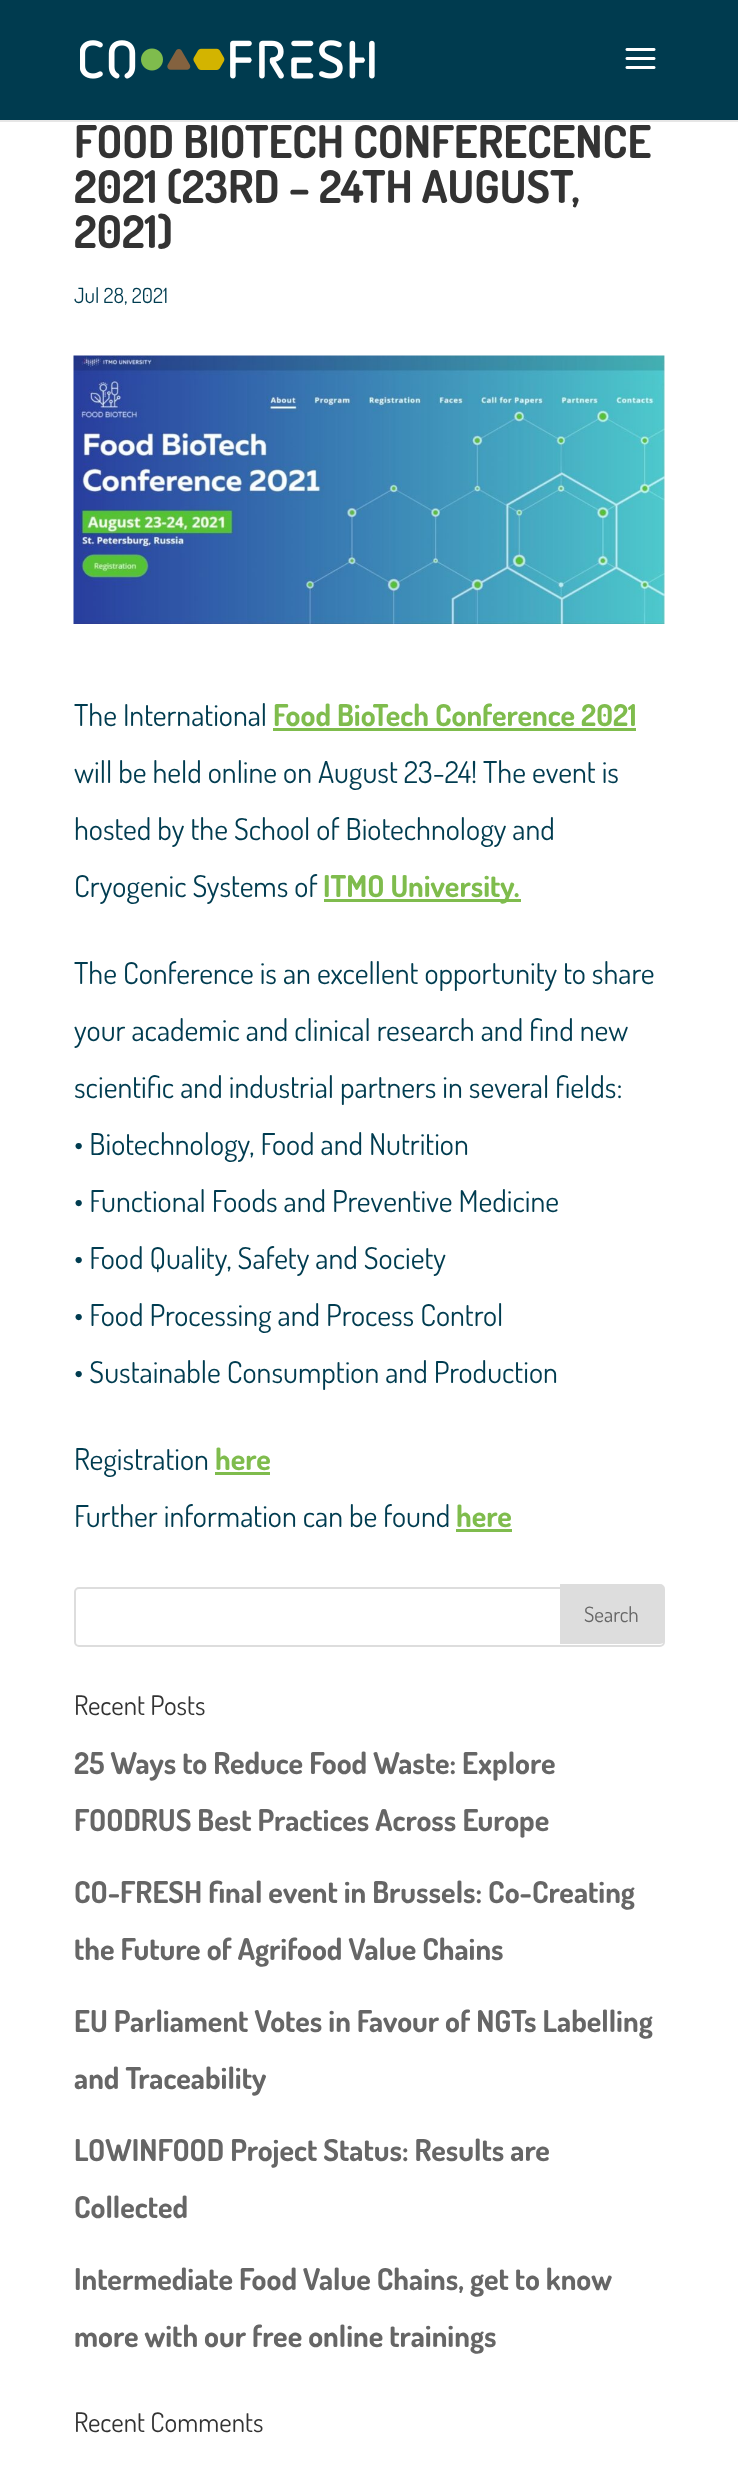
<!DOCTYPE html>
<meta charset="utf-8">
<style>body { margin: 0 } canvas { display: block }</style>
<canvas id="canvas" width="738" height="2471"></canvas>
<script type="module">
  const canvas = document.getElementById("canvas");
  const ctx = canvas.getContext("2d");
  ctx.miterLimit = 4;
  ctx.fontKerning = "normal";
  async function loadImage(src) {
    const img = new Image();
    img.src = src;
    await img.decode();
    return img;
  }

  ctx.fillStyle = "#ffffff";
  ctx.fillRect(0, 0, 738, 2471);
  ctx.fillStyle = "#e6e6e6";
  ctx.fillRect(0, 120, 738, 2);
  ctx.fillStyle = "#003b4f";
  ctx.fillRect(0, 0, 738, 120);
  ctx.drawImage(await loadImage("img1.png"), 80, 40, 295, 39);
  ctx.drawImage(await loadImage("img2.png"), 625, 48, 31, 21);
  ctx.font = "bold 45px Dosis";
  ctx.fillStyle = "#333333";
  ctx.fillText("FOOD BIOTECH CONFERECENCE", 74, 158);
  ctx.fillText("2021 (23RD – 24TH AUGUST,", 74, 203);
  ctx.fillText("2021)", 74, 248);
  ctx.font = "21px Dosis";
  ctx.fillStyle = "#003c50";
  ctx.fillText("Jul 28, 2021", 74, 303);
  ctx.drawImage(await loadImage("img3.png"), 73, 355, 592, 269);
  ctx.font = "30px Dosis";
  ctx.fillText("The International", 74, 726);
  ctx.font = "bold 30px Dosis";
  ctx.fillStyle = "#7fbc4d";
  ctx.fillText("Food BioTech Conference 2021", 273, 726);
  ctx.fillRect(273, 728, 363, 3);
  ctx.font = "30px Dosis";
  ctx.fillStyle = "#003c50";
  ctx.fillText("will be held online on August 23-24! The event is", 74, 783);
  ctx.fillText("hosted by the School of Biotechnology and", 74, 840);
  ctx.fillText("Cryogenic Systems of", 74, 897);
  ctx.fillStyle = "#7fbc4d";
  ctx.fillRect(324, 899, 197, 3);
  ctx.font = "bold 30px Dosis";
  ctx.fillText("ITMO University.", 323, 897);
  ctx.font = "30px Dosis";
  ctx.fillStyle = "#003c50";
  ctx.fillText("The Conference is an excellent opportunity to share", 74, 984);
  ctx.fillText("your academic and clinical research and find new", 74, 1041);
  ctx.fillText("scientific and industrial partners in several fields:", 74, 1098);
  ctx.fillText("• Biotechnology, Food and Nutrition", 74, 1155);
  ctx.fillText("• Functional Foods and Preventive Medicine", 74, 1212);
  ctx.fillText("• Food Quality, Safety and Society", 74, 1269);
  ctx.fillText("• Food Processing and Process Control", 74, 1326);
  ctx.fillText("• Sustainable Consumption and Production", 74, 1383);
  ctx.fillText("Registration", 74, 1470);
  ctx.font = "bold 30px Dosis";
  ctx.fillStyle = "#7fbc4d";
  ctx.fillText("here", 215, 1470);
  ctx.fillRect(215, 1472, 55, 3);
  ctx.font = "30px Dosis";
  ctx.fillStyle = "#003c50";
  ctx.fillText("Further information can be found", 74, 1527);
  ctx.font = "bold 30px Dosis";
  ctx.fillStyle = "#7fbc4d";
  ctx.fillText("here", 456, 1527);
  ctx.fillRect(456, 1529, 56, 3);
  ctx.beginPath();
  ctx.roundRect(75, 1588, 589, 58, 4);
  ctx.strokeStyle = "#dddddd";
  ctx.lineWidth = 2;
  ctx.stroke();
  ctx.fillStyle = "#dddddd";
  ctx.beginPath();
  ctx.roundRect(561, 1585, 103, 58, [0, 4, 4, 0]);
  ctx.fill();
  ctx.stroke();
  ctx.font = "21px Dosis";
  ctx.fillStyle = "#666666";
  ctx.fillText("Search", 584, 1622);
  ctx.font = "27px Dosis";
  ctx.fillStyle = "#333333";
  ctx.fillText("Recent Posts", 74, 1715);
  ctx.font = "bold 30px Dosis";
  ctx.fillStyle = "#666666";
  ctx.fillText("25 Ways to Reduce Food Waste: Explore", 74, 1774);
  ctx.fillText("FOODRUS Best Practices Across Europe", 74, 1831);
  ctx.fillText("CO-FRESH final event in Brussels: Co-Creating", 74, 1903);
  ctx.fillText("the Future of Agrifood Value Chains", 74, 1960);
  ctx.fillText("EU Parliament Votes in Favour of NGTs Labelling", 74, 2032);
  ctx.fillText("and Traceability", 74, 2089);
  ctx.fillText("LOWINFOOD Project Status: Results are", 74, 2161);
  ctx.fillText("Collected", 74, 2218);
  ctx.fillText("Intermediate Food Value Chains, get to know", 74, 2290);
  ctx.fillText("more with our free online trainings", 74, 2347);
  ctx.font = "27px Dosis";
  ctx.fillStyle = "#333333";
  ctx.fillText("Recent Comments", 74, 2432);
</script>
